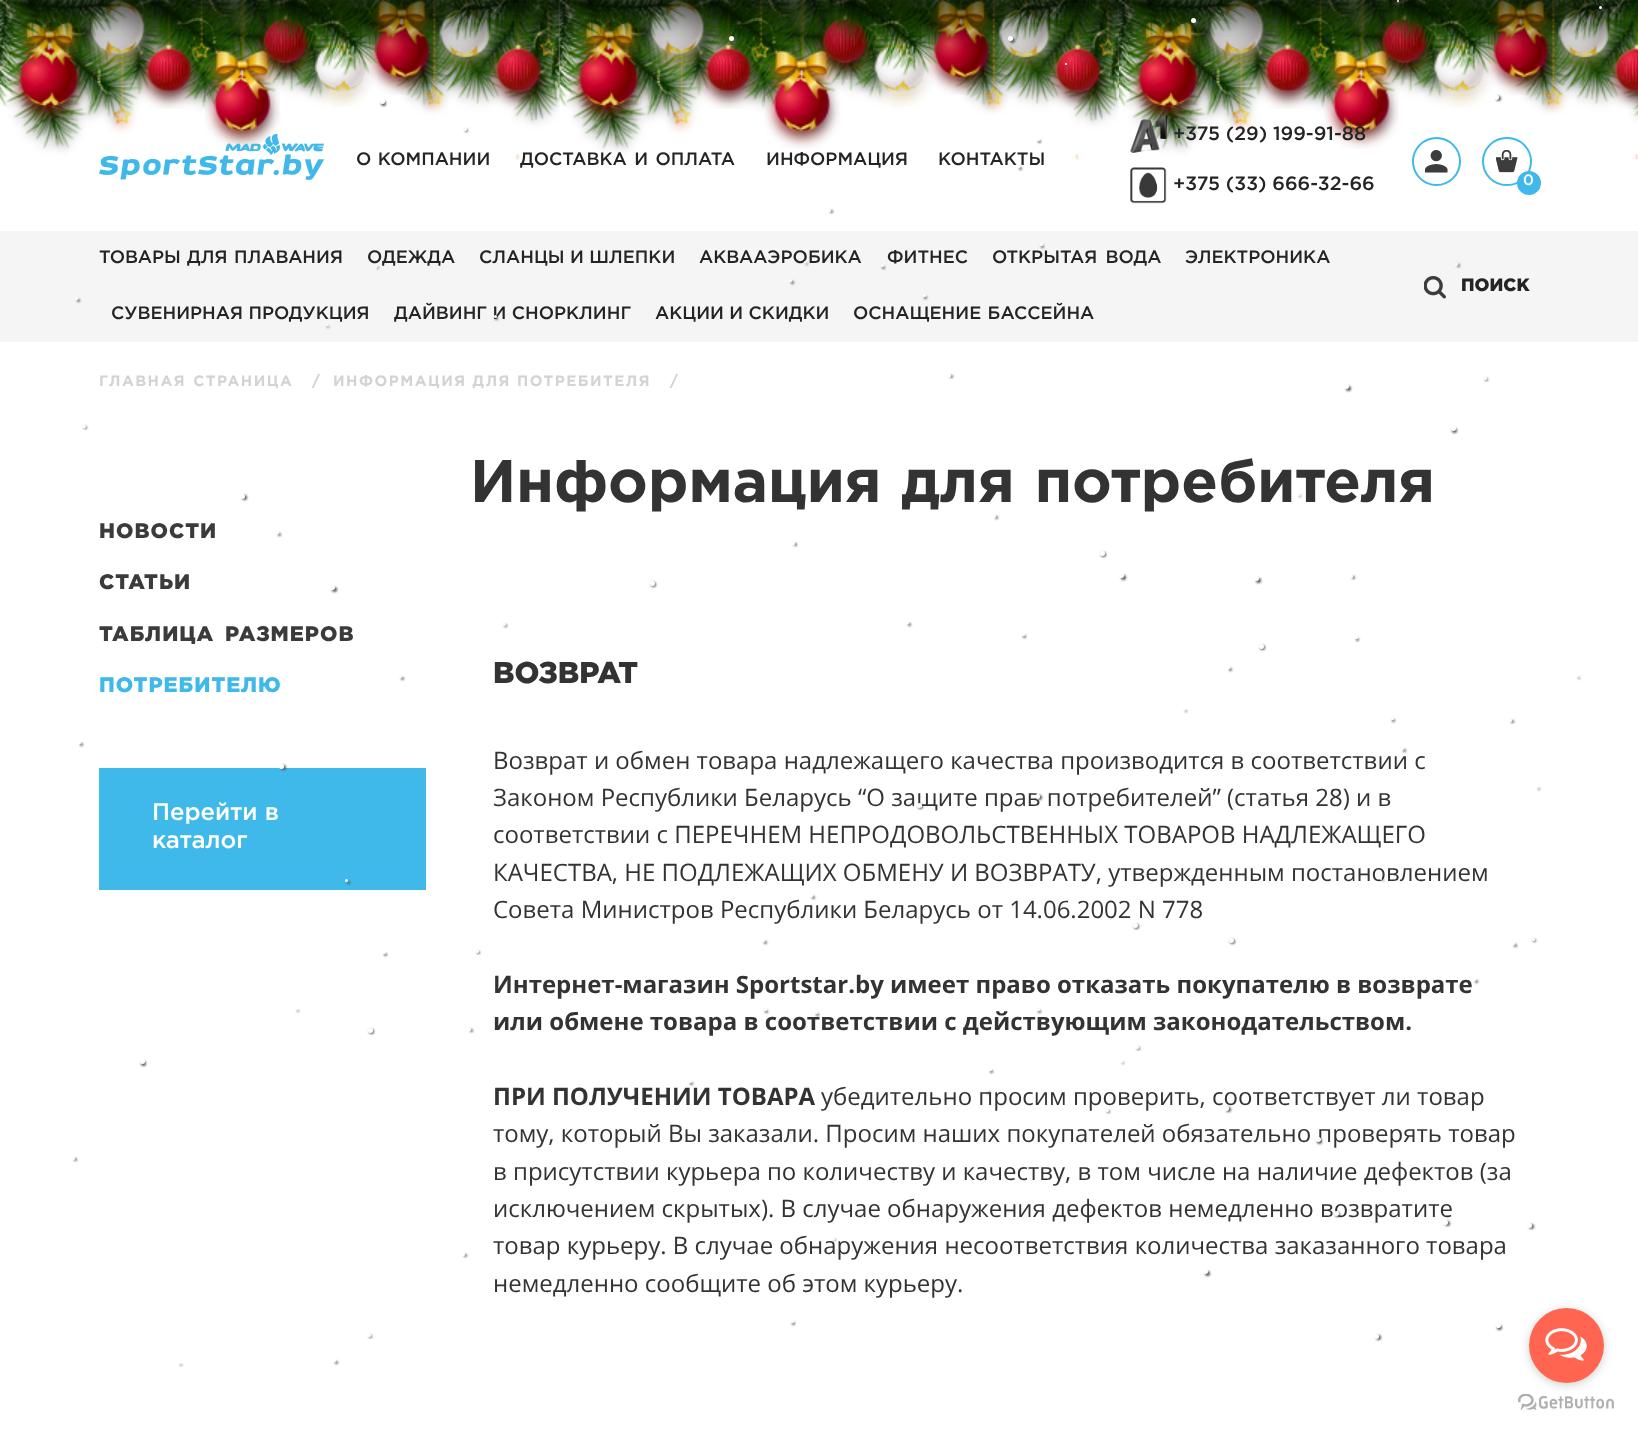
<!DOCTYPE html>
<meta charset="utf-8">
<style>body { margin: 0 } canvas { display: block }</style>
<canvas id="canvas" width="1638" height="1434"></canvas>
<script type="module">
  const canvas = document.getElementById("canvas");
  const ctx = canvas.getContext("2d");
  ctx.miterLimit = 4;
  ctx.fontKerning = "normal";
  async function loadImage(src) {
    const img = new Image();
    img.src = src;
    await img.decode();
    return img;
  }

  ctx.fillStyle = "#ffffff";
  ctx.fillRect(0, 0, 1638, 1434);
  ctx.drawImage(await loadImage("img1.png"), 0, 0, 1638, 160);
  ctx.drawImage(await loadImage("img3.png"), 10, 0, 78, 123);
  ctx.drawImage(await loadImage("img2.png"), 0, 0, 38, 107);
  ctx.drawImage(await loadImage("img5.png"), 81, 0, 73, 70);
  ctx.drawImage(await loadImage("img4.png"), 37, 0, 92, 40);
  ctx.drawImage(await loadImage("img6.png"), 205, 0, 75, 149);
  ctx.drawImage(await loadImage("img7.png"), 255, 0, 61, 80);
  ctx.drawImage(await loadImage("img13.png"), 306, 9, 68, 99);
  ctx.drawImage(await loadImage("img8.png"), 265, 0, 43, 46);
  ctx.drawImage(await loadImage("img10.png"), 365, 0, 73, 95);
  ctx.drawImage(await loadImage("img9.png"), 307, 0, 76, 75);
  ctx.drawImage(await loadImage("img11.png"), 431, 0, 69, 73);
  ctx.drawImage(await loadImage("img12.png"), 137, 13, 62, 96);
  ctx.drawImage(await loadImage("img16.png"), 487, 15, 63, 95);
  ctx.drawImage(await loadImage("img14.png"), 433, 0, 118, 42);
  ctx.drawImage(await loadImage("img15.png"), 550, 0, 10, 104);
  ctx.drawImage(await loadImage("img18.png"), 569, 0, 78, 123);
  ctx.drawImage(await loadImage("img17.png"), 559, 0, 38, 107);
  ctx.drawImage(await loadImage("img20.png"), 640, 0, 74, 70);
  ctx.drawImage(await loadImage("img19.png"), 597, 0, 91, 40);
  ctx.drawImage(await loadImage("img21.png"), 764, 0, 76, 149);
  ctx.drawImage(await loadImage("img22.png"), 814, 0, 61, 80);
  ctx.drawImage(await loadImage("img28.png"), 866, 9, 67, 99);
  ctx.drawImage(await loadImage("img23.png"), 825, 0, 42, 46);
  ctx.drawImage(await loadImage("img25.png"), 925, 0, 73, 95);
  ctx.drawImage(await loadImage("img24.png"), 867, 0, 75, 75);
  ctx.drawImage(await loadImage("img26.png"), 990, 0, 69, 73);
  ctx.drawImage(await loadImage("img27.png"), 697, 13, 62, 96);
  ctx.drawImage(await loadImage("img31.png"), 1047, 15, 62, 95);
  ctx.drawImage(await loadImage("img29.png"), 993, 0, 117, 42);
  ctx.drawImage(await loadImage("img30.png"), 1110, 0, 9, 104);
  ctx.drawImage(await loadImage("img33.png"), 1129, 0, 78, 123);
  ctx.drawImage(await loadImage("img32.png"), 1119, 0, 38, 107);
  ctx.drawImage(await loadImage("img35.png"), 1200, 0, 73, 70);
  ctx.drawImage(await loadImage("img34.png"), 1156, 0, 92, 40);
  ctx.drawImage(await loadImage("img36.png"), 1324, 0, 75, 149);
  ctx.drawImage(await loadImage("img37.png"), 1374, 0, 61, 80);
  ctx.drawImage(await loadImage("img43.png"), 1425, 9, 68, 99);
  ctx.drawImage(await loadImage("img38.png"), 1384, 0, 43, 46);
  ctx.drawImage(await loadImage("img40.png"), 1484, 0, 73, 95);
  ctx.drawImage(await loadImage("img39.png"), 1426, 0, 76, 75);
  ctx.drawImage(await loadImage("img41.png"), 1550, 0, 69, 73);
  ctx.drawImage(await loadImage("img42.png"), 1256, 13, 62, 96);
  ctx.drawImage(await loadImage("img45.png"), 1606, 15, 32, 95);
  ctx.drawImage(await loadImage("img44.png"), 1552, 0, 86, 42);
  ctx.fillStyle = "rgba(0, 0, 0, 0.75)";
  ctx.filter = "blur(22.5px)";
  ctx.beginPath();
  ctx.rect(0, -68, 1638, 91);
  ctx.fill();
  ctx.filter = "none";
  ctx.fillStyle = "#555555";
  ctx.filter = "blur(1px)";
  ctx.beginPath();
  ctx.roundRect(1398, 2, 2, 2, 1);
  ctx.fill();
  ctx.filter = "none";
  ctx.fillStyle = "#ffffff";
  ctx.beginPath();
  ctx.arc(1398, 1, 1, 0, Math.PI * 2);
  ctx.fill();
  ctx.fillStyle = "#555555";
  ctx.filter = "blur(1px)";
  ctx.beginPath();
  ctx.roundRect(1601, 8, 3, 3, 1.5);
  ctx.fill();
  ctx.filter = "none";
  ctx.fillStyle = "#ffffff";
  ctx.beginPath();
  ctx.arc(1600.5, 7.5, 1.5, 0, Math.PI * 2);
  ctx.fill();
  ctx.fillStyle = "#555555";
  ctx.filter = "blur(1px)";
  ctx.beginPath();
  ctx.roundRect(1193, 20, 5, 5, 2.5);
  ctx.fill();
  ctx.filter = "none";
  ctx.fillStyle = "#ffffff";
  ctx.beginPath();
  ctx.arc(1193.5, 20.5, 2.5, 0, Math.PI * 2);
  ctx.fill();
  ctx.fillStyle = "#555555";
  ctx.filter = "blur(1px)";
  ctx.beginPath();
  ctx.roundRect(731, 38, 5, 5, 2.5);
  ctx.fill();
  ctx.filter = "none";
  ctx.fillStyle = "#ffffff";
  ctx.beginPath();
  ctx.arc(731.5, 38.5, 2.5, 0, Math.PI * 2);
  ctx.fill();
  ctx.fillStyle = "#555555";
  ctx.filter = "blur(1px)";
  ctx.beginPath();
  ctx.roundRect(1010, 38, 5, 5, 2.5);
  ctx.fill();
  ctx.filter = "none";
  ctx.fillStyle = "#ffffff";
  ctx.beginPath();
  ctx.arc(1010.5, 38.5, 2.5, 0, Math.PI * 2);
  ctx.fill();
  ctx.fillStyle = "#555555";
  ctx.filter = "blur(1px)";
  ctx.beginPath();
  ctx.roundRect(1067, 65, 2, 2, 1);
  ctx.fill();
  ctx.filter = "none";
  ctx.fillStyle = "#ffffff";
  ctx.beginPath();
  ctx.arc(1066, 64, 1, 0, Math.PI * 2);
  ctx.fill();
  ctx.fillStyle = "#555555";
  ctx.filter = "blur(1px)";
  ctx.beginPath();
  ctx.roundRect(381, 101, 5, 5, 2.5);
  ctx.fill();
  ctx.filter = "none";
  ctx.fillStyle = "#ffffff";
  ctx.beginPath();
  ctx.arc(382.5, 101.5, 2.5, 0, Math.PI * 2);
  ctx.fill();
  ctx.fillStyle = "#555555";
  ctx.filter = "blur(1px)";
  ctx.beginPath();
  ctx.roundRect(1496, 96, 5, 5, 2.5);
  ctx.fill();
  ctx.filter = "none";
  ctx.fillStyle = "#ffffff";
  ctx.beginPath();
  ctx.arc(1496.5, 97.5, 2.5, 0, Math.PI * 2);
  ctx.fill();
  ctx.fillStyle = "#555555";
  ctx.filter = "blur(1px)";
  ctx.beginPath();
  ctx.roundRect(465, 129, 3, 3, 1.5);
  ctx.fill();
  ctx.filter = "none";
  ctx.fillStyle = "#ffffff";
  ctx.beginPath();
  ctx.arc(465.5, 129.5, 1.5, 0, Math.PI * 2);
  ctx.fill();
  ctx.fillStyle = "#555555";
  ctx.filter = "blur(1px)";
  ctx.beginPath();
  ctx.roundRect(1038, 140, 3, 3, 1.5);
  ctx.fill();
  ctx.filter = "none";
  ctx.fillStyle = "#ffffff";
  ctx.beginPath();
  ctx.arc(1038.5, 139.5, 1.5, 0, Math.PI * 2);
  ctx.fill();
  ctx.fillStyle = "#555555";
  ctx.filter = "blur(1px)";
  ctx.beginPath();
  ctx.roundRect(1019, 167, 3, 3, 1.5);
  ctx.fill();
  ctx.filter = "none";
  ctx.font = "500 18px Gotham";
  ctx.fillStyle = "#252425";
  ctx.fillText("КОНТАКТЫ", 938, 165);
  ctx.fillStyle = "#ffffff";
  ctx.beginPath();
  ctx.arc(1018.5, 166.5, 1.5, 0, Math.PI * 2);
  ctx.fill();
  ctx.fillStyle = "#555555";
  ctx.filter = "blur(1px)";
  ctx.beginPath();
  ctx.roundRect(830, 210, 3, 3, 1.5);
  ctx.fill();
  ctx.filter = "none";
  ctx.fillStyle = "#ffffff";
  ctx.beginPath();
  ctx.arc(829.5, 210.5, 1.5, 0, Math.PI * 2);
  ctx.fill();
  ctx.fillStyle = "#f5f5f5";
  ctx.fillRect(0, 231, 1638, 111);
  ctx.fillStyle = "#555555";
  ctx.filter = "blur(1px)";
  ctx.beginPath();
  ctx.roundRect(1041, 245, 3, 3, 1.5);
  ctx.fill();
  ctx.filter = "none";
  ctx.fillStyle = "#ffffff";
  ctx.beginPath();
  ctx.arc(1041.5, 244.5, 1.5, 0, Math.PI * 2);
  ctx.fill();
  ctx.fillStyle = "#555555";
  ctx.filter = "blur(1px)";
  ctx.beginPath();
  ctx.roundRect(377, 267, 2, 2, 1);
  ctx.fill();
  ctx.filter = "none";
  ctx.fillStyle = "#ffffff";
  ctx.beginPath();
  ctx.arc(376, 267, 1, 0, Math.PI * 2);
  ctx.fill();
  ctx.fillStyle = "#555555";
  ctx.filter = "blur(1px)";
  ctx.beginPath();
  ctx.roundRect(806, 263, 2, 2, 1);
  ctx.fill();
  ctx.filter = "none";
  ctx.fillStyle = "#252425";
  ctx.fillText("АКВААЭРОБИКА", 699, 263);
  ctx.fillStyle = "#ffffff";
  ctx.beginPath();
  ctx.arc(805, 262, 1, 0, Math.PI * 2);
  ctx.fill();
  ctx.fillStyle = "#555555";
  ctx.filter = "blur(1px)";
  ctx.beginPath();
  ctx.roundRect(882, 266, 3, 3, 1.5);
  ctx.fill();
  ctx.filter = "none";
  ctx.fillStyle = "#ffffff";
  ctx.beginPath();
  ctx.arc(882.5, 265.5, 1.5, 0, Math.PI * 2);
  ctx.fill();
  ctx.fillStyle = "#555555";
  ctx.filter = "blur(1px)";
  ctx.beginPath();
  ctx.roundRect(905, 258, 2, 2, 1);
  ctx.fill();
  ctx.filter = "none";
  ctx.fillStyle = "#252425";
  ctx.fillText("ФИТНЕС", 887, 263);
  ctx.fillStyle = "#ffffff";
  ctx.beginPath();
  ctx.arc(904, 258, 1, 0, Math.PI * 2);
  ctx.fill();
  ctx.fillStyle = "#555555";
  ctx.filter = "blur(1px)";
  ctx.beginPath();
  ctx.roundRect(1457, 264, 3, 3, 1.5);
  ctx.fill();
  ctx.filter = "none";
  ctx.fillStyle = "#ffffff";
  ctx.beginPath();
  ctx.arc(1456.5, 264.5, 1.5, 0, Math.PI * 2);
  ctx.fill();
  ctx.fillStyle = "#555555";
  ctx.filter = "blur(1px)";
  ctx.beginPath();
  ctx.roundRect(791, 281, 3, 3, 1.5);
  ctx.fill();
  ctx.filter = "none";
  ctx.fillStyle = "#ffffff";
  ctx.beginPath();
  ctx.arc(790.5, 280.5, 1.5, 0, Math.PI * 2);
  ctx.fill();
  ctx.fillStyle = "#555555";
  ctx.filter = "blur(1px)";
  ctx.beginPath();
  ctx.roundRect(77, 299, 3, 3, 1.5);
  ctx.fill();
  ctx.filter = "none";
  ctx.fillStyle = "#ffffff";
  ctx.beginPath();
  ctx.arc(76.5, 298.5, 1.5, 0, Math.PI * 2);
  ctx.fill();
  ctx.fillStyle = "#555555";
  ctx.filter = "blur(1px)";
  ctx.beginPath();
  ctx.roundRect(924, 296, 3, 3, 1.5);
  ctx.fill();
  ctx.filter = "none";
  ctx.fillStyle = "#ffffff";
  ctx.beginPath();
  ctx.arc(924.5, 295.5, 1.5, 0, Math.PI * 2);
  ctx.fill();
  ctx.fillStyle = "#555555";
  ctx.filter = "blur(1px)";
  ctx.beginPath();
  ctx.roundRect(495, 317, 3, 3, 1.5);
  ctx.fill();
  ctx.filter = "none";
  ctx.fillStyle = "#252425";
  ctx.fillText("ДАЙВИНГ И СНОРКЛИНГ", 394, 319);
  ctx.fillStyle = "#ffffff";
  ctx.beginPath();
  ctx.arc(495.5, 316.5, 1.5, 0, Math.PI * 2);
  ctx.fill();
  ctx.fillStyle = "#555555";
  ctx.filter = "blur(1px)";
  ctx.beginPath();
  ctx.roundRect(327, 326, 2, 2, 1);
  ctx.fill();
  ctx.filter = "none";
  ctx.fillStyle = "#ffffff";
  ctx.beginPath();
  ctx.arc(327, 325, 1, 0, Math.PI * 2);
  ctx.fill();
  ctx.fillStyle = "#555555";
  ctx.filter = "blur(1px)";
  ctx.beginPath();
  ctx.roundRect(950, 375, 3, 3, 1.5);
  ctx.fill();
  ctx.filter = "none";
  ctx.fillStyle = "#ffffff";
  ctx.beginPath();
  ctx.arc(949.5, 375.5, 1.5, 0, Math.PI * 2);
  ctx.fill();
  ctx.fillStyle = "#555555";
  ctx.filter = "blur(1px)";
  ctx.beginPath();
  ctx.roundRect(1485, 378, 3, 3, 1.5);
  ctx.fill();
  ctx.filter = "none";
  ctx.fillStyle = "#ffffff";
  ctx.beginPath();
  ctx.arc(1485.5, 378.5, 1.5, 0, Math.PI * 2);
  ctx.fill();
  ctx.fillStyle = "#555555";
  ctx.filter = "blur(1px)";
  ctx.beginPath();
  ctx.roundRect(1346, 386, 5, 5, 2.5);
  ctx.fill();
  ctx.filter = "none";
  ctx.fillStyle = "#ffffff";
  ctx.beginPath();
  ctx.arc(1346.5, 386.5, 2.5, 0, Math.PI * 2);
  ctx.fill();
  ctx.fillStyle = "#555555";
  ctx.filter = "blur(1px)";
  ctx.beginPath();
  ctx.roundRect(84, 426, 3, 3, 1.5);
  ctx.fill();
  ctx.filter = "none";
  ctx.fillStyle = "#ffffff";
  ctx.beginPath();
  ctx.arc(84.5, 426.5, 1.5, 0, Math.PI * 2);
  ctx.fill();
  ctx.fillStyle = "#555555";
  ctx.filter = "blur(1px)";
  ctx.beginPath();
  ctx.roundRect(1452, 428, 5, 5, 2.5);
  ctx.fill();
  ctx.filter = "none";
  ctx.fillStyle = "#ffffff";
  ctx.beginPath();
  ctx.arc(1453.5, 428.5, 2.5, 0, Math.PI * 2);
  ctx.fill();
  ctx.fillStyle = "#555555";
  ctx.filter = "blur(1px)";
  ctx.beginPath();
  ctx.roundRect(242, 495, 5, 5, 2.5);
  ctx.fill();
  ctx.filter = "none";
  ctx.fillStyle = "#ffffff";
  ctx.beginPath();
  ctx.arc(242.5, 496.5, 2.5, 0, Math.PI * 2);
  ctx.fill();
  ctx.fillStyle = "#555555";
  ctx.filter = "blur(1px)";
  ctx.beginPath();
  ctx.roundRect(1299, 495, 2, 2, 1);
  ctx.fill();
  ctx.filter = "none";
  ctx.wordSpacing = "2px";
  ctx.font = "bold 60px Gotham";
  ctx.fillStyle = "#333333";
  ctx.fillText("Информация для потребителя", 470, 502);
  ctx.fillStyle = "#ffffff";
  ctx.beginPath();
  ctx.arc(1299, 495, 1, 0, Math.PI * 2);
  ctx.fill();
  ctx.fillStyle = "#555555";
  ctx.filter = "blur(1px)";
  ctx.beginPath();
  ctx.roundRect(995, 516, 3, 3, 1.5);
  ctx.fill();
  ctx.filter = "none";
  ctx.fillStyle = "#ffffff";
  ctx.beginPath();
  ctx.arc(994.5, 516.5, 1.5, 0, Math.PI * 2);
  ctx.fill();
  ctx.fillStyle = "#555555";
  ctx.filter = "blur(1px)";
  ctx.beginPath();
  ctx.roundRect(278, 533, 3, 3, 1.5);
  ctx.fill();
  ctx.filter = "none";
  ctx.fillStyle = "#ffffff";
  ctx.beginPath();
  ctx.arc(277.5, 532.5, 1.5, 0, Math.PI * 2);
  ctx.fill();
  ctx.fillStyle = "#555555";
  ctx.filter = "blur(1px)";
  ctx.beginPath();
  ctx.roundRect(794, 543, 3, 3, 1.5);
  ctx.fill();
  ctx.filter = "none";
  ctx.fillStyle = "#ffffff";
  ctx.beginPath();
  ctx.arc(793.5, 543.5, 1.5, 0, Math.PI * 2);
  ctx.fill();
  ctx.fillStyle = "#555555";
  ctx.filter = "blur(1px)";
  ctx.beginPath();
  ctx.roundRect(1101, 552, 5, 5, 2.5);
  ctx.fill();
  ctx.filter = "none";
  ctx.fillStyle = "#ffffff";
  ctx.beginPath();
  ctx.arc(1102.5, 553.5, 2.5, 0, Math.PI * 2);
  ctx.fill();
  ctx.fillStyle = "#555555";
  ctx.filter = "blur(1px)";
  ctx.beginPath();
  ctx.roundRect(332, 587, 5, 5, 2.5);
  ctx.fill();
  ctx.filter = "none";
  ctx.fillStyle = "#ffffff";
  ctx.beginPath();
  ctx.arc(332.5, 587.5, 2.5, 0, Math.PI * 2);
  ctx.fill();
  ctx.fillStyle = "#555555";
  ctx.filter = "blur(1px)";
  ctx.beginPath();
  ctx.roundRect(651, 582, 5, 5, 2.5);
  ctx.fill();
  ctx.filter = "none";
  ctx.fillStyle = "#ffffff";
  ctx.beginPath();
  ctx.arc(652.5, 583.5, 2.5, 0, Math.PI * 2);
  ctx.fill();
  ctx.fillStyle = "#555555";
  ctx.filter = "blur(1px)";
  ctx.beginPath();
  ctx.roundRect(1121, 575, 5, 5, 2.5);
  ctx.fill();
  ctx.filter = "none";
  ctx.fillStyle = "#ffffff";
  ctx.beginPath();
  ctx.arc(1121.5, 575.5, 2.5, 0, Math.PI * 2);
  ctx.fill();
  ctx.fillStyle = "#555555";
  ctx.filter = "blur(1px)";
  ctx.beginPath();
  ctx.roundRect(1256, 578, 5, 5, 2.5);
  ctx.fill();
  ctx.filter = "none";
  ctx.fillStyle = "#ffffff";
  ctx.beginPath();
  ctx.arc(1256.5, 578.5, 2.5, 0, Math.PI * 2);
  ctx.fill();
  ctx.fillStyle = "#555555";
  ctx.filter = "blur(1px)";
  ctx.beginPath();
  ctx.roundRect(1352, 576, 3, 3, 1.5);
  ctx.fill();
  ctx.filter = "none";
  ctx.fillStyle = "#ffffff";
  ctx.beginPath();
  ctx.arc(1351.5, 576.5, 1.5, 0, Math.PI * 2);
  ctx.fill();
  ctx.fillStyle = "#555555";
  ctx.filter = "blur(1px)";
  ctx.beginPath();
  ctx.roundRect(504, 624, 3, 3, 1.5);
  ctx.fill();
  ctx.filter = "none";
  ctx.fillStyle = "#ffffff";
  ctx.beginPath();
  ctx.arc(504.5, 624.5, 1.5, 0, Math.PI * 2);
  ctx.fill();
  ctx.fillStyle = "#555555";
  ctx.filter = "blur(1px)";
  ctx.beginPath();
  ctx.roundRect(908, 623, 3, 3, 1.5);
  ctx.fill();
  ctx.filter = "none";
  ctx.fillStyle = "#ffffff";
  ctx.beginPath();
  ctx.arc(907.5, 622.5, 1.5, 0, Math.PI * 2);
  ctx.fill();
  ctx.fillStyle = "#555555";
  ctx.filter = "blur(1px)";
  ctx.beginPath();
  ctx.roundRect(1023, 635, 3, 3, 1.5);
  ctx.fill();
  ctx.filter = "none";
  ctx.fillStyle = "#ffffff";
  ctx.beginPath();
  ctx.arc(1023.5, 634.5, 1.5, 0, Math.PI * 2);
  ctx.fill();
  ctx.fillStyle = "#555555";
  ctx.filter = "blur(1px)";
  ctx.beginPath();
  ctx.roundRect(1356, 638, 3, 3, 1.5);
  ctx.fill();
  ctx.filter = "none";
  ctx.fillStyle = "#ffffff";
  ctx.beginPath();
  ctx.arc(1356.5, 637.5, 1.5, 0, Math.PI * 2);
  ctx.fill();
  ctx.fillStyle = "#555555";
  ctx.filter = "blur(1px)";
  ctx.beginPath();
  ctx.roundRect(1260, 645, 5, 5, 2.5);
  ctx.fill();
  ctx.filter = "none";
  ctx.fillStyle = "#ffffff";
  ctx.beginPath();
  ctx.arc(1261.5, 646.5, 2.5, 0, Math.PI * 2);
  ctx.fill();
  ctx.fillStyle = "#555555";
  ctx.filter = "blur(1px)";
  ctx.beginPath();
  ctx.roundRect(1229, 668, 3, 3, 1.5);
  ctx.fill();
  ctx.filter = "none";
  ctx.fillStyle = "#ffffff";
  ctx.beginPath();
  ctx.arc(1228.5, 667.5, 1.5, 0, Math.PI * 2);
  ctx.fill();
  ctx.fillStyle = "#555555";
  ctx.filter = "blur(1px)";
  ctx.beginPath();
  ctx.roundRect(401, 677, 3, 3, 1.5);
  ctx.fill();
  ctx.filter = "none";
  ctx.fillStyle = "#ffffff";
  ctx.beginPath();
  ctx.arc(400.5, 676.5, 1.5, 0, Math.PI * 2);
  ctx.fill();
  ctx.fillStyle = "#555555";
  ctx.filter = "blur(1px)";
  ctx.beginPath();
  ctx.roundRect(1578, 677, 2, 2, 1);
  ctx.fill();
  ctx.filter = "none";
  ctx.fillStyle = "#ffffff";
  ctx.beginPath();
  ctx.arc(1578, 676, 1, 0, Math.PI * 2);
  ctx.fill();
  ctx.fillStyle = "#555555";
  ctx.filter = "blur(1px)";
  ctx.beginPath();
  ctx.roundRect(1185, 710, 2, 2, 1);
  ctx.fill();
  ctx.filter = "none";
  ctx.fillStyle = "#ffffff";
  ctx.beginPath();
  ctx.arc(1185, 709, 1, 0, Math.PI * 2);
  ctx.fill();
  ctx.fillStyle = "#555555";
  ctx.filter = "blur(1px)";
  ctx.beginPath();
  ctx.roundRect(1392, 719, 3, 3, 1.5);
  ctx.fill();
  ctx.filter = "none";
  ctx.fillStyle = "#ffffff";
  ctx.beginPath();
  ctx.arc(1392.5, 718.5, 1.5, 0, Math.PI * 2);
  ctx.fill();
  ctx.fillStyle = "#555555";
  ctx.filter = "blur(1px)";
  ctx.beginPath();
  ctx.roundRect(1511, 720, 3, 3, 1.5);
  ctx.fill();
  ctx.filter = "none";
  ctx.fillStyle = "#ffffff";
  ctx.beginPath();
  ctx.arc(1510.5, 720.5, 1.5, 0, Math.PI * 2);
  ctx.fill();
  ctx.fillStyle = "#555555";
  ctx.filter = "blur(1px)";
  ctx.beginPath();
  ctx.roundRect(80, 743, 3, 3, 1.5);
  ctx.fill();
  ctx.filter = "none";
  ctx.fillStyle = "#ffffff";
  ctx.beginPath();
  ctx.arc(79.5, 742.5, 1.5, 0, Math.PI * 2);
  ctx.fill();
  ctx.fillStyle = "#555555";
  ctx.filter = "blur(1px)";
  ctx.beginPath();
  ctx.roundRect(1403, 749, 3, 3, 1.5);
  ctx.fill();
  ctx.filter = "none";
  ctx.fillStyle = "#ffffff";
  ctx.beginPath();
  ctx.arc(1402.5, 748.5, 1.5, 0, Math.PI * 2);
  ctx.fill();
  ctx.fillStyle = "#3fb8ea";
  ctx.fillRect(99, 768, 327, 122);
  ctx.fillStyle = "#555555";
  ctx.filter = "blur(1px)";
  ctx.beginPath();
  ctx.roundRect(281, 765, 5, 5, 2.5);
  ctx.fill();
  ctx.filter = "none";
  ctx.fillStyle = "#ffffff";
  ctx.beginPath();
  ctx.arc(281.5, 766.5, 2.5, 0, Math.PI * 2);
  ctx.fill();
  ctx.fillStyle = "#555555";
  ctx.filter = "blur(1px)";
  ctx.beginPath();
  ctx.roundRect(1538, 788, 2, 2, 1);
  ctx.fill();
  ctx.filter = "none";
  ctx.fillStyle = "#ffffff";
  ctx.beginPath();
  ctx.arc(1537, 787, 1, 0, Math.PI * 2);
  ctx.fill();
  ctx.fillStyle = "#555555";
  ctx.filter = "blur(1px)";
  ctx.beginPath();
  ctx.roundRect(1037, 795, 5, 5, 2.5);
  ctx.fill();
  ctx.filter = "none";
  ctx.wordSpacing = "0px";
  ctx.font = "24px Open Sans";
  ctx.fillStyle = "#333333";
  ctx.fillText("Законом Республики Беларусь “О защите прав потребителей” (статья 28) и в", 493, 806);
  ctx.fillStyle = "#ffffff";
  ctx.beginPath();
  ctx.arc(1037.5, 796.5, 2.5, 0, Math.PI * 2);
  ctx.fill();
  ctx.fillStyle = "#555555";
  ctx.filter = "blur(1px)";
  ctx.beginPath();
  ctx.roundRect(1259, 798, 2, 2, 1);
  ctx.fill();
  ctx.filter = "none";
  ctx.fillStyle = "#ffffff";
  ctx.beginPath();
  ctx.arc(1258, 798, 1, 0, Math.PI * 2);
  ctx.fill();
  ctx.fillStyle = "#555555";
  ctx.filter = "blur(1px)";
  ctx.beginPath();
  ctx.roundRect(918, 804, 5, 5, 2.5);
  ctx.fill();
  ctx.filter = "none";
  ctx.fillStyle = "#ffffff";
  ctx.beginPath();
  ctx.arc(919.5, 805.5, 2.5, 0, Math.PI * 2);
  ctx.fill();
  ctx.fillStyle = "#555555";
  ctx.filter = "blur(1px)";
  ctx.beginPath();
  ctx.roundRect(347, 881, 3, 3, 1.5);
  ctx.fill();
  ctx.filter = "none";
  ctx.fillStyle = "#ffffff";
  ctx.beginPath();
  ctx.arc(346.5, 880.5, 1.5, 0, Math.PI * 2);
  ctx.fill();
  ctx.fillStyle = "#555555";
  ctx.filter = "blur(1px)";
  ctx.beginPath();
  ctx.roundRect(1382, 879, 2, 2, 1);
  ctx.fill();
  ctx.filter = "none";
  ctx.fillStyle = "#333333";
  ctx.fillText("КАЧЕСТВА, НЕ ПОДЛЕЖАЩИХ ОБМЕНУ И ВОЗВРАТУ, утвержденным постановлением", 493, 881);
  ctx.fillStyle = "#ffffff";
  ctx.beginPath();
  ctx.arc(1381, 879, 1, 0, Math.PI * 2);
  ctx.fill();
  ctx.fillStyle = "#555555";
  ctx.filter = "blur(1px)";
  ctx.beginPath();
  ctx.roundRect(812, 896, 3, 3, 1.5);
  ctx.fill();
  ctx.filter = "none";
  ctx.fillStyle = "#ffffff";
  ctx.beginPath();
  ctx.arc(811.5, 895.5, 1.5, 0, Math.PI * 2);
  ctx.fill();
  ctx.fillStyle = "#555555";
  ctx.filter = "blur(1px)";
  ctx.beginPath();
  ctx.roundRect(1134, 924, 5, 5, 2.5);
  ctx.fill();
  ctx.filter = "none";
  ctx.fillStyle = "#333333";
  ctx.fillText("Совета Министров Республики Беларусь от 14.06.2002 N 778", 493, 918);
  ctx.fillStyle = "#ffffff";
  ctx.beginPath();
  ctx.arc(1135.5, 925.5, 2.5, 0, Math.PI * 2);
  ctx.fill();
  ctx.fillStyle = "#555555";
  ctx.filter = "blur(1px)";
  ctx.beginPath();
  ctx.roundRect(764, 941, 3, 3, 1.5);
  ctx.fill();
  ctx.filter = "none";
  ctx.fillStyle = "#ffffff";
  ctx.beginPath();
  ctx.arc(763.5, 940.5, 1.5, 0, Math.PI * 2);
  ctx.fill();
  ctx.fillStyle = "#555555";
  ctx.filter = "blur(1px)";
  ctx.beginPath();
  ctx.roundRect(1230, 939, 5, 5, 2.5);
  ctx.fill();
  ctx.filter = "none";
  ctx.fillStyle = "#ffffff";
  ctx.beginPath();
  ctx.arc(1231.5, 940.5, 2.5, 0, Math.PI * 2);
  ctx.fill();
  ctx.fillStyle = "#555555";
  ctx.filter = "blur(1px)";
  ctx.beginPath();
  ctx.roundRect(1514, 944, 3, 3, 1.5);
  ctx.fill();
  ctx.filter = "none";
  ctx.fillStyle = "#ffffff";
  ctx.beginPath();
  ctx.arc(1513.5, 943.5, 1.5, 0, Math.PI * 2);
  ctx.fill();
  ctx.fillStyle = "#555555";
  ctx.filter = "blur(1px)";
  ctx.beginPath();
  ctx.roundRect(1533, 939, 3, 3, 1.5);
  ctx.fill();
  ctx.filter = "none";
  ctx.fillStyle = "#ffffff";
  ctx.beginPath();
  ctx.arc(1533.5, 939.5, 1.5, 0, Math.PI * 2);
  ctx.fill();
  ctx.fillStyle = "#555555";
  ctx.filter = "blur(1px)";
  ctx.beginPath();
  ctx.roundRect(384, 953, 3, 3, 1.5);
  ctx.fill();
  ctx.filter = "none";
  ctx.fillStyle = "#ffffff";
  ctx.beginPath();
  ctx.arc(384.5, 952.5, 1.5, 0, Math.PI * 2);
  ctx.fill();
  ctx.fillStyle = "#555555";
  ctx.filter = "blur(1px)";
  ctx.beginPath();
  ctx.roundRect(477, 951, 3, 3, 1.5);
  ctx.fill();
  ctx.filter = "none";
  ctx.fillStyle = "#ffffff";
  ctx.beginPath();
  ctx.arc(477.5, 951.5, 1.5, 0, Math.PI * 2);
  ctx.fill();
  ctx.fillStyle = "#555555";
  ctx.filter = "blur(1px)";
  ctx.beginPath();
  ctx.roundRect(1475, 980, 3, 3, 1.5);
  ctx.fill();
  ctx.filter = "none";
  ctx.fillStyle = "#ffffff";
  ctx.beginPath();
  ctx.arc(1474.5, 979.5, 1.5, 0, Math.PI * 2);
  ctx.fill();
  ctx.fillStyle = "#555555";
  ctx.filter = "blur(1px)";
  ctx.beginPath();
  ctx.roundRect(297, 1010, 2, 2, 1);
  ctx.fill();
  ctx.filter = "none";
  ctx.fillStyle = "#ffffff";
  ctx.beginPath();
  ctx.arc(297, 1009, 1, 0, Math.PI * 2);
  ctx.fill();
  ctx.fillStyle = "#555555";
  ctx.filter = "blur(1px)";
  ctx.beginPath();
  ctx.roundRect(765, 1010, 3, 3, 1.5);
  ctx.fill();
  ctx.filter = "none";
  ctx.fillStyle = "#ffffff";
  ctx.beginPath();
  ctx.arc(765.5, 1009.5, 1.5, 0, Math.PI * 2);
  ctx.fill();
  ctx.fillStyle = "#555555";
  ctx.filter = "blur(1px)";
  ctx.beginPath();
  ctx.roundRect(816, 1013, 3, 3, 1.5);
  ctx.fill();
  ctx.filter = "none";
  ctx.font = "bold 24px Open Sans";
  ctx.fillStyle = "#333333";
  ctx.fillText("или обмене товара в соответствии с действующим законодательством.", 493, 1030);
  ctx.fillStyle = "#ffffff";
  ctx.beginPath();
  ctx.arc(816.5, 1012.5, 1.5, 0, Math.PI * 2);
  ctx.fill();
  ctx.fillStyle = "#555555";
  ctx.filter = "blur(1px)";
  ctx.beginPath();
  ctx.roundRect(1038, 1010, 3, 3, 1.5);
  ctx.fill();
  ctx.filter = "none";
  ctx.fillStyle = "#ffffff";
  ctx.beginPath();
  ctx.arc(1038.5, 1009.5, 1.5, 0, Math.PI * 2);
  ctx.fill();
  ctx.fillStyle = "#555555";
  ctx.filter = "blur(1px)";
  ctx.beginPath();
  ctx.roundRect(369, 1029, 5, 5, 2.5);
  ctx.fill();
  ctx.filter = "none";
  ctx.fillStyle = "#ffffff";
  ctx.beginPath();
  ctx.arc(370.5, 1030.5, 2.5, 0, Math.PI * 2);
  ctx.fill();
  ctx.fillStyle = "#555555";
  ctx.filter = "blur(1px)";
  ctx.beginPath();
  ctx.roundRect(470, 1029, 3, 3, 1.5);
  ctx.fill();
  ctx.filter = "none";
  ctx.fillStyle = "#ffffff";
  ctx.beginPath();
  ctx.arc(469.5, 1029.5, 1.5, 0, Math.PI * 2);
  ctx.fill();
  ctx.fillStyle = "#555555";
  ctx.filter = "blur(1px)";
  ctx.beginPath();
  ctx.roundRect(1137, 1047, 3, 3, 1.5);
  ctx.fill();
  ctx.filter = "none";
  ctx.fillStyle = "#ffffff";
  ctx.beginPath();
  ctx.arc(1137.5, 1047.5, 1.5, 0, Math.PI * 2);
  ctx.fill();
  ctx.fillStyle = "#555555";
  ctx.filter = "blur(1px)";
  ctx.beginPath();
  ctx.roundRect(141, 1061, 5, 5, 2.5);
  ctx.fill();
  ctx.filter = "none";
  ctx.fillStyle = "#ffffff";
  ctx.beginPath();
  ctx.arc(142.5, 1061.5, 2.5, 0, Math.PI * 2);
  ctx.fill();
  ctx.fillStyle = "#555555";
  ctx.filter = "blur(1px)";
  ctx.beginPath();
  ctx.roundRect(1122, 1062, 2, 2, 1);
  ctx.fill();
  ctx.filter = "none";
  ctx.fillStyle = "#ffffff";
  ctx.beginPath();
  ctx.arc(1122, 1062, 1, 0, Math.PI * 2);
  ctx.fill();
  ctx.fillStyle = "#555555";
  ctx.filter = "blur(1px)";
  ctx.beginPath();
  ctx.roundRect(990, 1070, 3, 3, 1.5);
  ctx.fill();
  ctx.filter = "none";
  ctx.fillStyle = "#ffffff";
  ctx.beginPath();
  ctx.arc(990.5, 1069.5, 1.5, 0, Math.PI * 2);
  ctx.fill();
  ctx.fillStyle = "#555555";
  ctx.filter = "blur(1px)";
  ctx.beginPath();
  ctx.roundRect(690, 1082, 3, 3, 1.5);
  ctx.fill();
  ctx.filter = "none";
  ctx.fillStyle = "#ffffff";
  ctx.beginPath();
  ctx.arc(690.5, 1081.5, 1.5, 0, Math.PI * 2);
  ctx.fill();
  ctx.fillStyle = "#555555";
  ctx.filter = "blur(1px)";
  ctx.beginPath();
  ctx.roundRect(987, 1091, 3, 3, 1.5);
  ctx.fill();
  ctx.filter = "none";
  ctx.font = "24px Open Sans";
  ctx.fillStyle = "#333333";
  ctx.fillText("убедительно просим проверить, соответствует ли товар", 821, 1105);
  ctx.fillStyle = "#ffffff";
  ctx.beginPath();
  ctx.arc(987.5, 1090.5, 1.5, 0, Math.PI * 2);
  ctx.fill();
  ctx.fillStyle = "#555555";
  ctx.filter = "blur(1px)";
  ctx.beginPath();
  ctx.roundRect(1107, 1110, 3, 3, 1.5);
  ctx.fill();
  ctx.filter = "none";
  ctx.fillStyle = "#ffffff";
  ctx.beginPath();
  ctx.arc(1107.5, 1110.5, 1.5, 0, Math.PI * 2);
  ctx.fill();
  ctx.fillStyle = "#555555";
  ctx.filter = "blur(1px)";
  ctx.beginPath();
  ctx.roundRect(1226, 1107, 5, 5, 2.5);
  ctx.fill();
  ctx.filter = "none";
  ctx.fillStyle = "#ffffff";
  ctx.beginPath();
  ctx.arc(1226.5, 1108.5, 2.5, 0, Math.PI * 2);
  ctx.fill();
  ctx.fillStyle = "#555555";
  ctx.filter = "blur(1px)";
  ctx.beginPath();
  ctx.roundRect(1317, 1139, 5, 5, 2.5);
  ctx.fill();
  ctx.filter = "none";
  ctx.fillStyle = "#333333";
  ctx.fillText("тому, который Вы заказали. Просим наших покупателей обязательно проверять товар", 493, 1142);
  ctx.fillStyle = "#ffffff";
  ctx.beginPath();
  ctx.arc(1318.5, 1139.5, 2.5, 0, Math.PI * 2);
  ctx.fill();
  ctx.fillStyle = "#555555";
  ctx.filter = "blur(1px)";
  ctx.beginPath();
  ctx.roundRect(74, 1158, 3, 3, 1.5);
  ctx.fill();
  ctx.filter = "none";
  ctx.fillStyle = "#ffffff";
  ctx.beginPath();
  ctx.arc(73.5, 1158.5, 1.5, 0, Math.PI * 2);
  ctx.fill();
  ctx.fillStyle = "#555555";
  ctx.filter = "blur(1px)";
  ctx.beginPath();
  ctx.roundRect(1335, 1212, 5, 5, 2.5);
  ctx.fill();
  ctx.filter = "none";
  ctx.fillStyle = "#333333";
  ctx.fillText("исключением скрытых). В случае обнаружения дефектов немедленно возвратите", 493, 1217);
  ctx.fillStyle = "#ffffff";
  ctx.beginPath();
  ctx.arc(1336.5, 1213.5, 2.5, 0, Math.PI * 2);
  ctx.fill();
  ctx.fillStyle = "#555555";
  ctx.filter = "blur(1px)";
  ctx.beginPath();
  ctx.roundRect(1445, 1221, 5, 5, 2.5);
  ctx.fill();
  ctx.filter = "none";
  ctx.fillStyle = "#ffffff";
  ctx.beginPath();
  ctx.arc(1445.5, 1222.5, 2.5, 0, Math.PI * 2);
  ctx.fill();
  ctx.fillStyle = "#555555";
  ctx.filter = "blur(1px)";
  ctx.beginPath();
  ctx.roundRect(1529, 1224, 5, 5, 2.5);
  ctx.fill();
  ctx.filter = "none";
  ctx.fillStyle = "#ffffff";
  ctx.beginPath();
  ctx.arc(1529.5, 1225.5, 2.5, 0, Math.PI * 2);
  ctx.fill();
  ctx.fillStyle = "#555555";
  ctx.filter = "blur(1px)";
  ctx.beginPath();
  ctx.roundRect(834, 1239, 2, 2, 1);
  ctx.fill();
  ctx.filter = "none";
  ctx.fillStyle = "#333333";
  ctx.fillText("товар курьеру. В случае обнаружения несоответствия количества заказанного товара", 493, 1254);
  ctx.fillStyle = "#ffffff";
  ctx.beginPath();
  ctx.arc(834, 1239, 1, 0, Math.PI * 2);
  ctx.fill();
  ctx.fillStyle = "#555555";
  ctx.filter = "blur(1px)";
  ctx.beginPath();
  ctx.roundRect(464, 1254, 3, 3, 1.5);
  ctx.fill();
  ctx.filter = "none";
  ctx.fillStyle = "#ffffff";
  ctx.beginPath();
  ctx.arc(463.5, 1254.5, 1.5, 0, Math.PI * 2);
  ctx.fill();
  ctx.fillStyle = "#555555";
  ctx.filter = "blur(1px)";
  ctx.beginPath();
  ctx.roundRect(1205, 1271, 5, 5, 2.5);
  ctx.fill();
  ctx.filter = "none";
  ctx.fillStyle = "#ffffff";
  ctx.beginPath();
  ctx.arc(1205.5, 1271.5, 2.5, 0, Math.PI * 2);
  ctx.fill();
  ctx.fillStyle = "#555555";
  ctx.filter = "blur(1px)";
  ctx.beginPath();
  ctx.roundRect(792, 1322, 3, 3, 1.5);
  ctx.fill();
  ctx.filter = "none";
  ctx.fillStyle = "#ffffff";
  ctx.beginPath();
  ctx.arc(792.5, 1321.5, 1.5, 0, Math.PI * 2);
  ctx.fill();
  ctx.fillStyle = "#555555";
  ctx.filter = "blur(1px)";
  ctx.beginPath();
  ctx.roundRect(1497, 1325, 5, 5, 2.5);
  ctx.fill();
  ctx.filter = "none";
  ctx.fillStyle = "#ffffff";
  ctx.beginPath();
  ctx.arc(1498.5, 1325.5, 2.5, 0, Math.PI * 2);
  ctx.fill();
  ctx.fillStyle = "#555555";
  ctx.filter = "blur(1px)";
  ctx.beginPath();
  ctx.roundRect(369, 1335, 3, 3, 1.5);
  ctx.fill();
  ctx.filter = "none";
  ctx.fillStyle = "#ffffff";
  ctx.beginPath();
  ctx.arc(369.5, 1335.5, 1.5, 0, Math.PI * 2);
  ctx.fill();
  ctx.fillStyle = "#555555";
  ctx.filter = "blur(1px)";
  ctx.beginPath();
  ctx.roundRect(1376, 1335, 5, 5, 2.5);
  ctx.fill();
  ctx.filter = "none";
  ctx.fillStyle = "#ffffff";
  ctx.beginPath();
  ctx.arc(1376.5, 1336.5, 2.5, 0, Math.PI * 2);
  ctx.fill();
  ctx.fillStyle = "#555555";
  ctx.filter = "blur(1px)";
  ctx.beginPath();
  ctx.roundRect(180, 1364, 2, 2, 1);
  ctx.fill();
  ctx.filter = "none";
  ctx.fillStyle = "#ffffff";
  ctx.beginPath();
  ctx.arc(180, 1363, 1, 0, Math.PI * 2);
  ctx.fill();
  ctx.fillStyle = "#555555";
  ctx.filter = "blur(1px)";
  ctx.beginPath();
  ctx.roundRect(335, 1361, 3, 3, 1.5);
  ctx.fill();
  ctx.filter = "none";
  ctx.fillStyle = "#ffffff";
  ctx.beginPath();
  ctx.arc(334.5, 1360.5, 1.5, 0, Math.PI * 2);
  ctx.fill();
  ctx.drawImage(await loadImage("img46.png"), 99, 134, 225, 46);
  ctx.wordSpacing = "1px";
  ctx.font = "500 18px Gotham";
  ctx.fillStyle = "#252425";
  ctx.fillText("О КОМПАНИИ", 356, 165);
  ctx.wordSpacing = "2px";
  ctx.fillText("ДОСТАВКА И ОПЛАТА", 520, 165);
  ctx.wordSpacing = "0px";
  ctx.fillText("ИНФОРМАЦИЯ", 766, 165);
  ctx.drawImage(await loadImage("img47.png"), 1130, 115, 37, 38);
  ctx.font = "500 19.25px Gotham";
  ctx.fillText("+375 (29) 199-91-88", 1173, 140);
  ctx.drawImage(await loadImage("img48.png"), 1130, 167, 37, 37);
  ctx.fillText("+375 (33) 666-32-66", 1173, 190);
  ctx.beginPath();
  ctx.arc(1436.5, 161.5, 23.5, 0, Math.PI * 2);
  ctx.strokeStyle = "#3fb8ea";
  ctx.lineWidth = 2;
  ctx.stroke();
  ctx.drawImage(await loadImage("img49.png"), 1425, 150, 23, 23);
  ctx.beginPath();
  ctx.roundRect(1483, 138, 48, 47, 23.5);
  ctx.stroke();
  ctx.drawImage(await loadImage("img50.png"), 1496, 150, 22, 23);
  ctx.fillStyle = "#3fb8ea";
  ctx.beginPath();
  ctx.arc(1529, 183, 11, 0, Math.PI * 2);
  ctx.fill();
  ctx.stroke();
  ctx.font = "500 15px Gotham";
  ctx.fillStyle = "#ffffff";
  ctx.fillText("0", 1523, 185);
  ctx.wordSpacing = "1px";
  ctx.font = "500 18px Gotham";
  ctx.fillStyle = "#252425";
  ctx.fillText("ТОВАРЫ ДЛЯ ПЛАВАНИЯ", 99, 263);
  ctx.wordSpacing = "0px";
  ctx.fillText("ОДЕЖДА", 367, 263);
  ctx.fillText("СЛАНЦЫ И ШЛЕПКИ", 479, 263);
  ctx.wordSpacing = "3px";
  ctx.fillText("ОТКРЫТАЯ ВОДА", 992, 263);
  ctx.wordSpacing = "0px";
  ctx.fillText("ЭЛЕКТРОНИКА", 1185, 263);
  ctx.fillText("СУВЕНИРНАЯ ПРОДУКЦИЯ", 111, 319);
  ctx.fillText("АКЦИИ И СКИДКИ", 655, 319);
  ctx.wordSpacing = "1px";
  ctx.fillText("ОСНАЩЕНИЕ БАССЕЙНА", 853, 319);
  ctx.drawImage(await loadImage("img51.png"), 1424, 276, 22, 23);
  ctx.wordSpacing = "0px";
  ctx.font = "900 18px Gotham";
  ctx.fillText("ПОИСК", 1461, 291);
  ctx.letterSpacing = "1.5px";
  ctx.wordSpacing = "1px";
  ctx.font = "bold 15px Gotham";
  ctx.fillStyle = "#d3d3d3";
  ctx.fillText("ГЛАВНАЯ СТРАНИЦА", 99, 386);
  ctx.wordSpacing = "0px";
  ctx.fillText("/", 312, 386);
  ctx.fillText("ИНФОРМАЦИЯ ДЛЯ ПОТРЕБИТЕЛЯ", 333, 386);
  ctx.fillText("/", 670, 386);
  ctx.letterSpacing = "1px";
  ctx.font = "900 21px Gotham";
  ctx.fillStyle = "#3b3b3b";
  ctx.fillText("НОВОСТИ", 99, 538);
  ctx.fillText("СТАТЬИ", 99, 589);
  ctx.wordSpacing = "4px";
  ctx.fillText("ТАБЛИЦА РАЗМЕРОВ", 99, 641);
  ctx.wordSpacing = "0px";
  ctx.fillStyle = "#3fb8ea";
  ctx.fillText("ПОТРЕБИТЕЛЮ", 99, 692);
  ctx.letterSpacing = "0px";
  ctx.font = "500 24px Gotham";
  ctx.fillStyle = "#ffffff";
  ctx.fillText("Перейти в", 152, 820);
  ctx.fillText("каталог", 152, 848);
  ctx.font = "900 30px Gotham";
  ctx.fillStyle = "#333333";
  ctx.fillText("ВОЗВРАТ", 493, 683);
  ctx.font = "24px Open Sans";
  ctx.fillText("Возврат и обмен товара надлежащего качества производится в соответствии с", 493, 769);
  ctx.fillText("соответствии с ПЕРЕЧНЕМ НЕПРОДОВОЛЬСТВЕННЫХ ТОВАРОВ НАДЛЕЖАЩЕГО", 493, 843);
  ctx.font = "bold 24px Open Sans";
  ctx.fillText("Интернет-магазин Sportstar.by имеет право отказать покупателю в возврате", 493, 993);
  ctx.fillText("ПРИ ПОЛУЧЕНИИ ТОВАРА", 493, 1105);
  ctx.font = "24px Open Sans";
  ctx.fillText("в присутствии курьера по количеству и качеству, в том числе на наличие дефектов (за", 493, 1180);
  ctx.fillText("немедленно сообщите об этом курьеру.", 493, 1292);
  ctx.drawImage(await loadImage("img53.png"), 1518, 1394, 96, 16);
  ctx.fillStyle = "rgba(136, 136, 136, 0.4)";
  ctx.filter = "blur(5px)";
  ctx.beginPath();
  ctx.roundRect(1529, 1310, 75, 75, 37.5);
  ctx.fill();
  ctx.filter = "none";
  ctx.fillStyle = "#ff6550";
  ctx.beginPath();
  ctx.arc(1566.5, 1345.5, 37.5, 0, Math.PI * 2);
  ctx.fill();
  ctx.drawImage(await loadImage("img52.png"), 1545, 1328, 42, 33);
</script>
